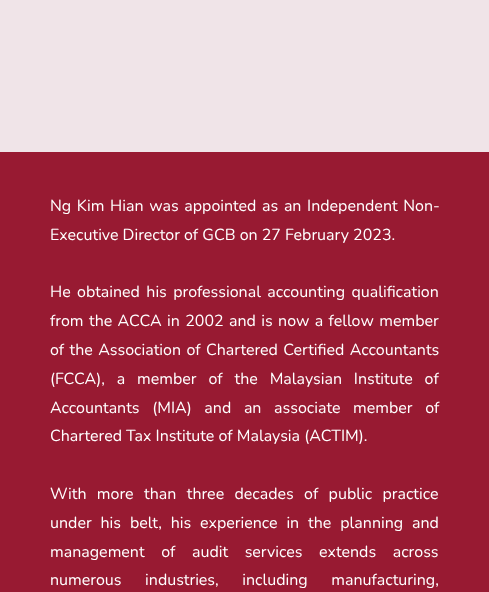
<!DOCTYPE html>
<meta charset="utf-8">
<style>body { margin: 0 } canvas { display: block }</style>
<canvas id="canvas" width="489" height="592"></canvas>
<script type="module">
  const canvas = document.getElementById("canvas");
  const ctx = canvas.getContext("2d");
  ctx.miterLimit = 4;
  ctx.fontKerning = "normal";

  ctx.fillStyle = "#f0e4e8";
  ctx.fillRect(0, 0, 489, 592);
  ctx.fillStyle = "#981a32";
  ctx.fillRect(0, 152, 489, 440);
  ctx.wordSpacing = "1.5px";
  ctx.font = "16px Nunito";
  ctx.fillStyle = "#ffffff";
  ctx.fillText("Ng Kim Hian was appointed as an Independent Non-", 50, 211);
  ctx.wordSpacing = "0px";
  ctx.fillText("Executive Director of GCB on 27 February 2023.", 50, 240);
  ctx.wordSpacing = "2.25px";
  ctx.fillText("He obtained his professional accounting qualification", 50, 297);
  ctx.wordSpacing = "1.25px";
  ctx.fillText("from the ACCA in 2002 and is now a fellow member", 50, 326);
  ctx.fillText("of the Association of Chartered Certified Accountants", 50, 355);
  ctx.wordSpacing = "7.75px";
  ctx.fillText("(FCCA), a member of the Malaysian Institute of", 50, 384);
  ctx.wordSpacing = "8.5px";
  ctx.fillText("Accountants (MIA) and an associate member of", 50, 413);
  ctx.wordSpacing = "0px";
  ctx.fillText("Chartered Tax Institute of Malaysia (ACTIM).", 50, 441);
  ctx.wordSpacing = "6.25px";
  ctx.fillText("With more than three decades of public practice", 50, 499);
  ctx.wordSpacing = "4.75px";
  ctx.fillText("under his belt, his experience in the planning and", 50, 528);
  ctx.wordSpacing = "12.5px";
  ctx.fillText("management of audit services extends across", 50, 557);
  ctx.wordSpacing = "19.5px";
  ctx.fillText("numerous industries, including manufacturing,", 50, 585);
</script>
